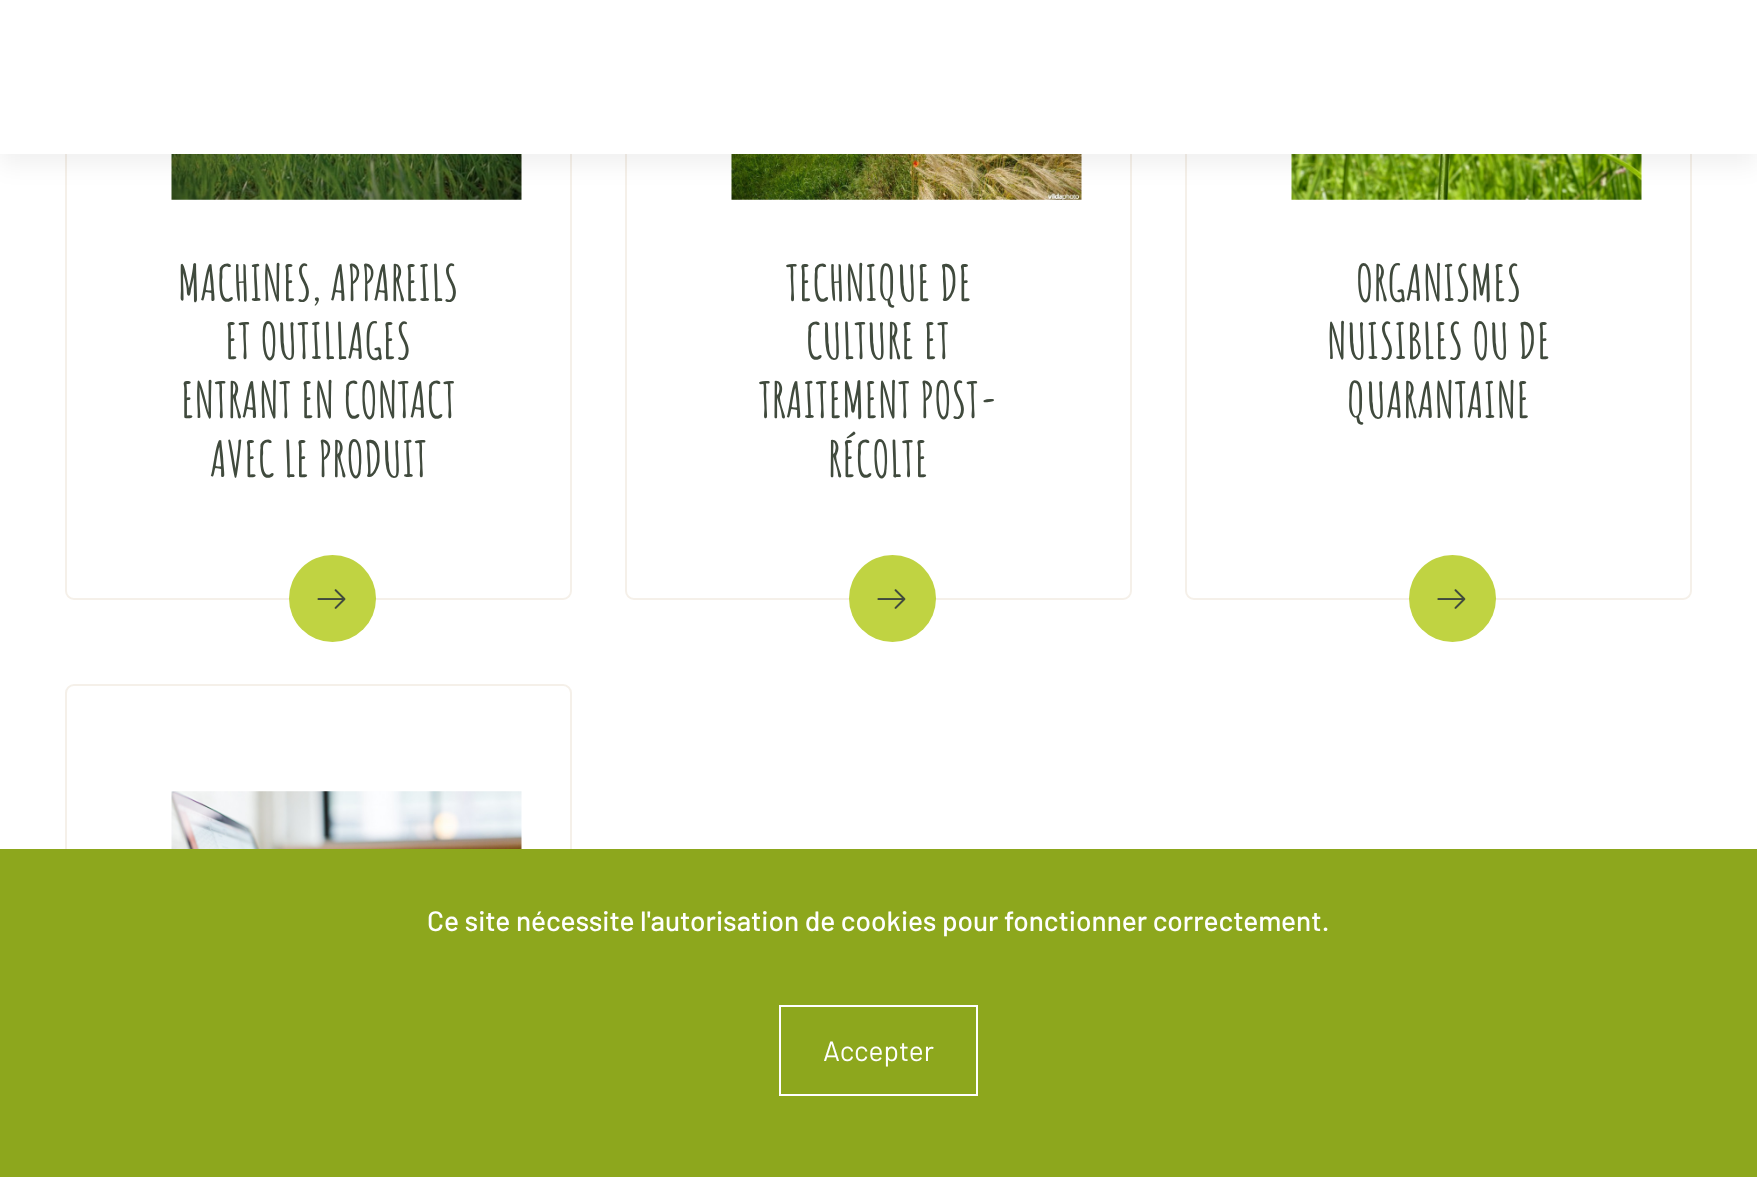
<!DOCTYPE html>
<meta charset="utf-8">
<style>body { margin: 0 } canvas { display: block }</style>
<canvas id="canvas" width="1757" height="1177"></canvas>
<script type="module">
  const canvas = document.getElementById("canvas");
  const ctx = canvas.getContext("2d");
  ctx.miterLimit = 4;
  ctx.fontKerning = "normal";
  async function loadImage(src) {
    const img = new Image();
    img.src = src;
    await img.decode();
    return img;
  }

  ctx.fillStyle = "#ffffff";
  ctx.fillRect(0, 0, 1757, 1177);
  ctx.beginPath();
  ctx.roundRect(66, -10, 505, 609, 8);
  ctx.strokeStyle = "#f5f0e9";
  ctx.lineWidth = 2;
  ctx.stroke();
  ctx.drawImage(await loadImage("img1.png"), 171, 154, 351, 46);
  ctx.beginPath();
  ctx.roundRect(626, -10, 505, 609, 8);
  ctx.stroke();
  ctx.drawImage(await loadImage("img3.png"), 731, 154, 351, 46);
  ctx.beginPath();
  ctx.roundRect(1186, -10, 505, 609, 8);
  ctx.stroke();
  ctx.drawImage(await loadImage("img5.png"), 1291, 154, 351, 46);
  ctx.fillStyle = "rgba(0, 0, 0, 0.06)";
  ctx.filter = "blur(11.5px)";
  ctx.beginPath();
  ctx.rect(0, 11, 1757, 154);
  ctx.fill();
  ctx.filter = "none";
  ctx.fillStyle = "#ffffff";
  ctx.fillRect(0, 0, 1757, 154);
  ctx.font = "bold 49px Amatic SC";
  ctx.fillStyle = "#404a3d";
  ctx.fillText("MACHINES, APPAREILS", 178, 301);
  ctx.fillText("ET OUTILLAGES", 225, 359);
  ctx.fillText("ENTRANT EN CONTACT", 181, 418);
  ctx.fillText("AVEC LE PRODUIT", 210, 477);
  ctx.fillStyle = "#c0d342";
  ctx.beginPath();
  ctx.arc(332.5, 598.5, 43.5, 0, Math.PI * 2);
  ctx.fill();
  ctx.drawImage(await loadImage("img2.png"), 317, 589, 29, 20);
  ctx.fillStyle = "#404a3d";
  ctx.fillText("TECHNIQUE DE", 786, 301);
  ctx.fillText("CULTURE ET", 806, 359);
  ctx.fillText("TRAITEMENT POST-", 759, 418);
  ctx.fillText("RÉCOLTE", 828, 477);
  ctx.fillStyle = "#c0d342";
  ctx.beginPath();
  ctx.arc(892.5, 598.5, 43.5, 0, Math.PI * 2);
  ctx.fill();
  ctx.drawImage(await loadImage("img4.png"), 877, 589, 29, 20);
  ctx.fillStyle = "#404a3d";
  ctx.fillText("ORGANISMES", 1356, 301);
  ctx.fillText("NUISIBLES OU DE", 1327, 359);
  ctx.fillText("QUARANTAINE", 1347, 418);
  ctx.fillStyle = "#c0d342";
  ctx.beginPath();
  ctx.arc(1452.5, 598.5, 43.5, 0, Math.PI * 2);
  ctx.fill();
  ctx.drawImage(await loadImage("img6.png"), 1437, 589, 29, 20);
  ctx.beginPath();
  ctx.roundRect(66, 685, 505, 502, 8);
  ctx.stroke();
  ctx.drawImage(await loadImage("img7.png"), 171, 791, 351, 58);
  ctx.fillStyle = "#8da71d";
  ctx.fillRect(0, 849, 1757, 328);
  ctx.font = "500 28px Barlow";
  ctx.fillStyle = "#ffffff";
  ctx.fillText("Ce site nécessite l'autorisation de cookies pour fonctionner correctement.", 427, 931);
  ctx.strokeStyle = "#ffffff";
  ctx.strokeRect(780, 1006, 197, 89);
  ctx.font = "28px Barlow";
  ctx.fillText("Accepter", 823, 1061);
</script>
